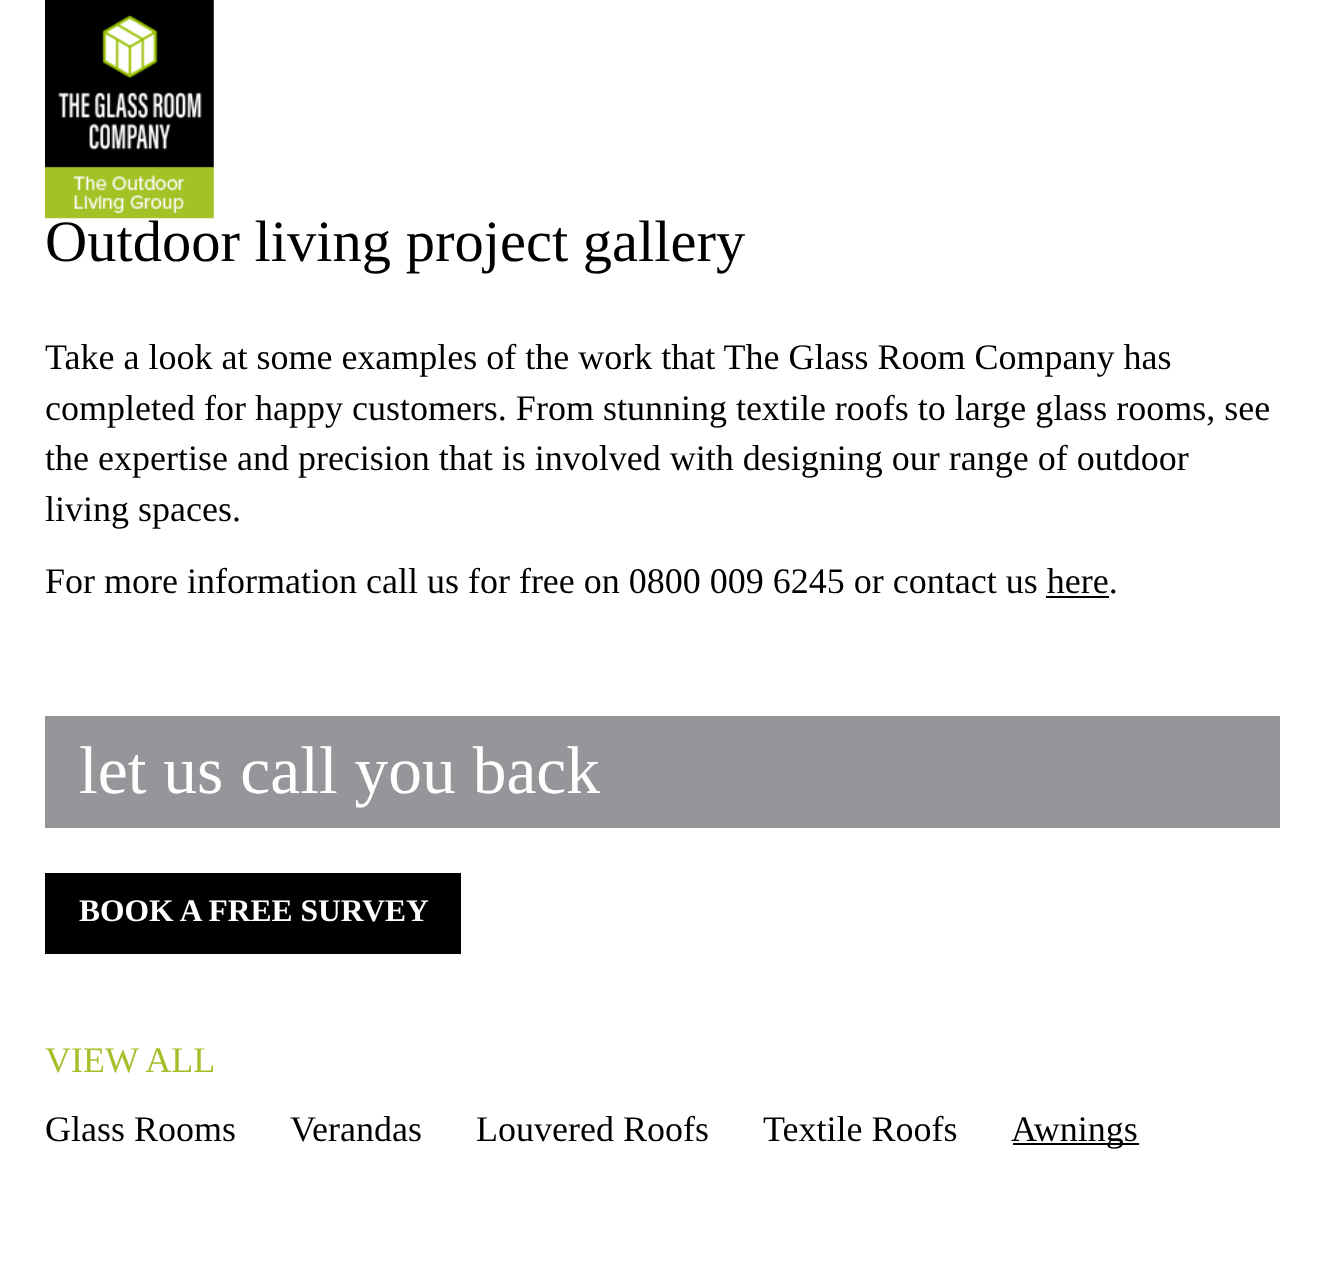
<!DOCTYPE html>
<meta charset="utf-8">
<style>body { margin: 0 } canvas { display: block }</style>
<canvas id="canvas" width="1324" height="1284"></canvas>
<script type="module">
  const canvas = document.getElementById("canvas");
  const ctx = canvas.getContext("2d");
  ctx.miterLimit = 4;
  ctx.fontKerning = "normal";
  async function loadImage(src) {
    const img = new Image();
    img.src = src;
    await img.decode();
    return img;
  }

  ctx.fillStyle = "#ffffff";
  ctx.fillRect(0, 0, 1324, 1284);
  ctx.drawImage(await loadImage("img1.png"), 45, 0, 169, 219);
  ctx.font = "58.5px Liberation Serif";
  ctx.fillStyle = "#000000";
  ctx.fillText("Outdoor living project gallery", 45, 261);
  ctx.font = "36px Liberation Serif";
  ctx.fillText("Take a look at some examples of the work that The Glass Room Company has", 45, 369);
  ctx.fillText("completed for happy customers. From stunning textile roofs to large glass rooms, see", 45, 420);
  ctx.fillText("the expertise and precision that is involved with designing our range of outdoor", 45, 470);
  ctx.fillText("living spaces.", 45, 521);
  ctx.fillText("For more information call us for free on 0800 009 6245 or contact us here.", 45, 593);
  ctx.fillRect(1046, 596, 63, 2);
  ctx.fillStyle = "#96959a";
  ctx.fillRect(45, 716, 1235, 112);
  ctx.font = "67.5px Liberation Serif";
  ctx.fillStyle = "#ffffff";
  ctx.fillText("let us call you back", 79, 793);
  ctx.fillStyle = "#000000";
  ctx.fillRect(45, 873, 416, 81);
  ctx.font = "bold 31.5px Liberation Serif";
  ctx.fillStyle = "#ffffff";
  ctx.fillText("BOOK A FREE SURVEY", 79, 921);
  ctx.font = "36px Liberation Serif";
  ctx.fillStyle = "#a3c02a";
  ctx.fillText("VIEW ALL", 45, 1072);
  ctx.fillStyle = "#000000";
  ctx.fillText("Glass Rooms", 45, 1141);
  ctx.fillText("Verandas", 290, 1141);
  ctx.fillText("Louvered Roofs", 476, 1141);
  ctx.fillText("Textile Roofs", 763, 1141);
  ctx.fillRect(1013, 1143, 126, 2);
  ctx.fillText("Awnings", 1011, 1141);
</script>
